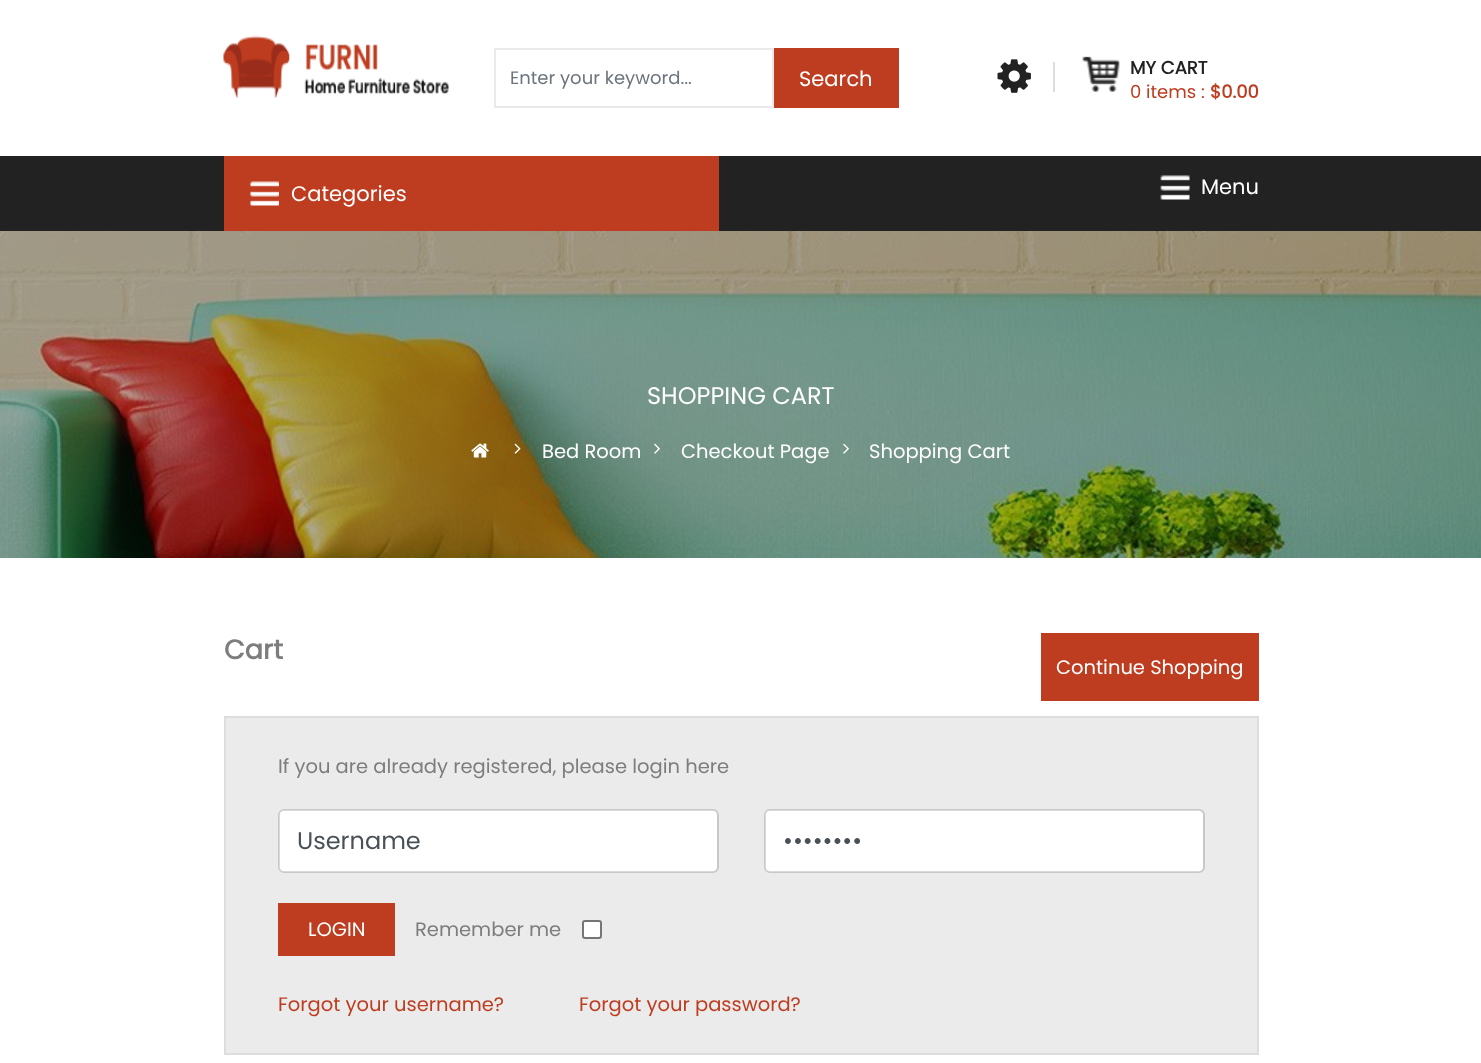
<!DOCTYPE html>
<meta charset="utf-8">
<style>body { margin: 0 } canvas { display: block }</style>
<canvas id="canvas" width="1481" height="1063"></canvas>
<script type="module">
  const canvas = document.getElementById("canvas");
  const ctx = canvas.getContext("2d");
  ctx.miterLimit = 4;
  ctx.fontKerning = "normal";
  async function loadImage(src) {
    const img = new Image();
    img.src = src;
    await img.decode();
    return img;
  }

  ctx.fillStyle = "#ffffff";
  ctx.fillRect(0, 0, 1481, 1063);
  ctx.drawImage(await loadImage("img1.png"), 223, 35, 226, 63);
  ctx.strokeStyle = "#ebeaea";
  ctx.lineWidth = 2;
  ctx.strokeRect(495, 49, 278, 58);
  ctx.font = "18px Poppins";
  ctx.fillStyle = "#6c757d";
  ctx.fillText("Enter your keyword...", 510, 84);
  ctx.fillStyle = "#be3d20";
  ctx.fillRect(774, 48, 125, 60);
  ctx.font = "21px Poppins";
  ctx.fillStyle = "#ffffff";
  ctx.fillText("Search", 799, 86);
  ctx.drawImage(await loadImage("img2.png"), 997, 59, 34, 34);
  ctx.fillStyle = "#dddddd";
  ctx.fillRect(1053, 62, 2, 30);
  ctx.drawImage(await loadImage("img3.png"), 1082, 56, 38, 36);
  ctx.font = "bold 18px Poppins";
  ctx.fillStyle = "#222222";
  ctx.fillText("MY CART", 1130, 74);
  ctx.font = "18px Poppins";
  ctx.fillStyle = "#be3d20";
  ctx.fillText("0 items :", 1130, 98);
  ctx.font = "bold 18px Poppins";
  ctx.fillText("$0.00", 1210, 98);
  ctx.fillStyle = "#222222";
  ctx.fillRect(0, 156, 1481, 75);
  ctx.fillStyle = "#be3d20";
  ctx.fillRect(224, 156, 495, 75);
  ctx.drawImage(await loadImage("img4.png"), 250, 181, 29, 25);
  ctx.font = "21px Poppins";
  ctx.fillStyle = "#ffffff";
  ctx.fillText("Categories", 291, 201);
  ctx.drawImage(await loadImage("img5.png"), 1160, 175, 30, 25);
  ctx.fillText("Menu", 1201, 194);
  ctx.drawImage(await loadImage("img6.png"), 0, 231, 1481, 327);
  ctx.font = "24px Poppins";
  ctx.fillText("SHOPPING CART", 647, 404);
  ctx.drawImage(await loadImage("img7.png"), 471, 443, 18, 15);
  ctx.drawImage(await loadImage("img8.png"), 514, 443, 7, 11);
  ctx.font = "19.5px Poppins";
  ctx.fillText("Bed Room", 542, 458);
  ctx.drawImage(await loadImage("img9.png"), 654, 443, 6, 11);
  ctx.fillText("Checkout Page", 681, 458);
  ctx.drawImage(await loadImage("img10.png"), 843, 443, 6, 11);
  ctx.fillText("Shopping Cart", 869, 458);
  ctx.font = "bold 27px Poppins";
  ctx.fillStyle = "#7d7d7d";
  ctx.fillText("Cart", 224, 659);
  ctx.fillStyle = "#be3d20";
  ctx.fillRect(1041, 633, 218, 68);
  ctx.font = "19.5px Poppins";
  ctx.fillStyle = "#ffffff";
  ctx.fillText("Continue Shopping", 1056, 674);
  ctx.fillStyle = "#ebebeb";
  ctx.beginPath();
  ctx.rect(225, 717, 1033, 337);
  ctx.fill();
  ctx.strokeStyle = "#dddddd";
  ctx.stroke();
  ctx.fillStyle = "#7d7d7d";
  ctx.fillText("If you are already registered, please login here", 278, 773);
  ctx.fillStyle = "#ffffff";
  ctx.beginPath();
  ctx.roundRect(279, 810, 438, 62, 5);
  ctx.fill();
  ctx.beginPath();
  ctx.roundRect(279, 810, 439, 62, 5);
  ctx.strokeStyle = "rgba(0, 0, 0, 0.15)";
  ctx.stroke();
  ctx.font = "24px Poppins";
  ctx.fillStyle = "#495057";
  ctx.fillText("Username", 297, 849);
  ctx.fillStyle = "#ffffff";
  ctx.beginPath();
  ctx.roundRect(765, 810, 438, 62, 5);
  ctx.fill();
  ctx.beginPath();
  ctx.roundRect(765, 810, 439, 62, 5);
  ctx.stroke();
  ctx.fillStyle = "#495057";
  ctx.fillText("••••••••", 783, 849);
  ctx.fillStyle = "#be3d20";
  ctx.fillRect(278, 903, 117, 53);
  ctx.font = "19.5px Poppins";
  ctx.fillStyle = "#ffffff";
  ctx.fillText("LOGIN", 308, 936);
  ctx.fillStyle = "#7d7d7d";
  ctx.fillText("Remember me", 415, 936);
  ctx.fillStyle = "#ffffff";
  ctx.beginPath();
  ctx.roundRect(583, 921, 18, 17, 2);
  ctx.fill();
  ctx.strokeStyle = "#767676";
  ctx.stroke();
  ctx.fillStyle = "#be3d20";
  ctx.fillText("Forgot your username?", 278, 1011);
  ctx.fillText("Forgot your password?", 579, 1011);
</script>
